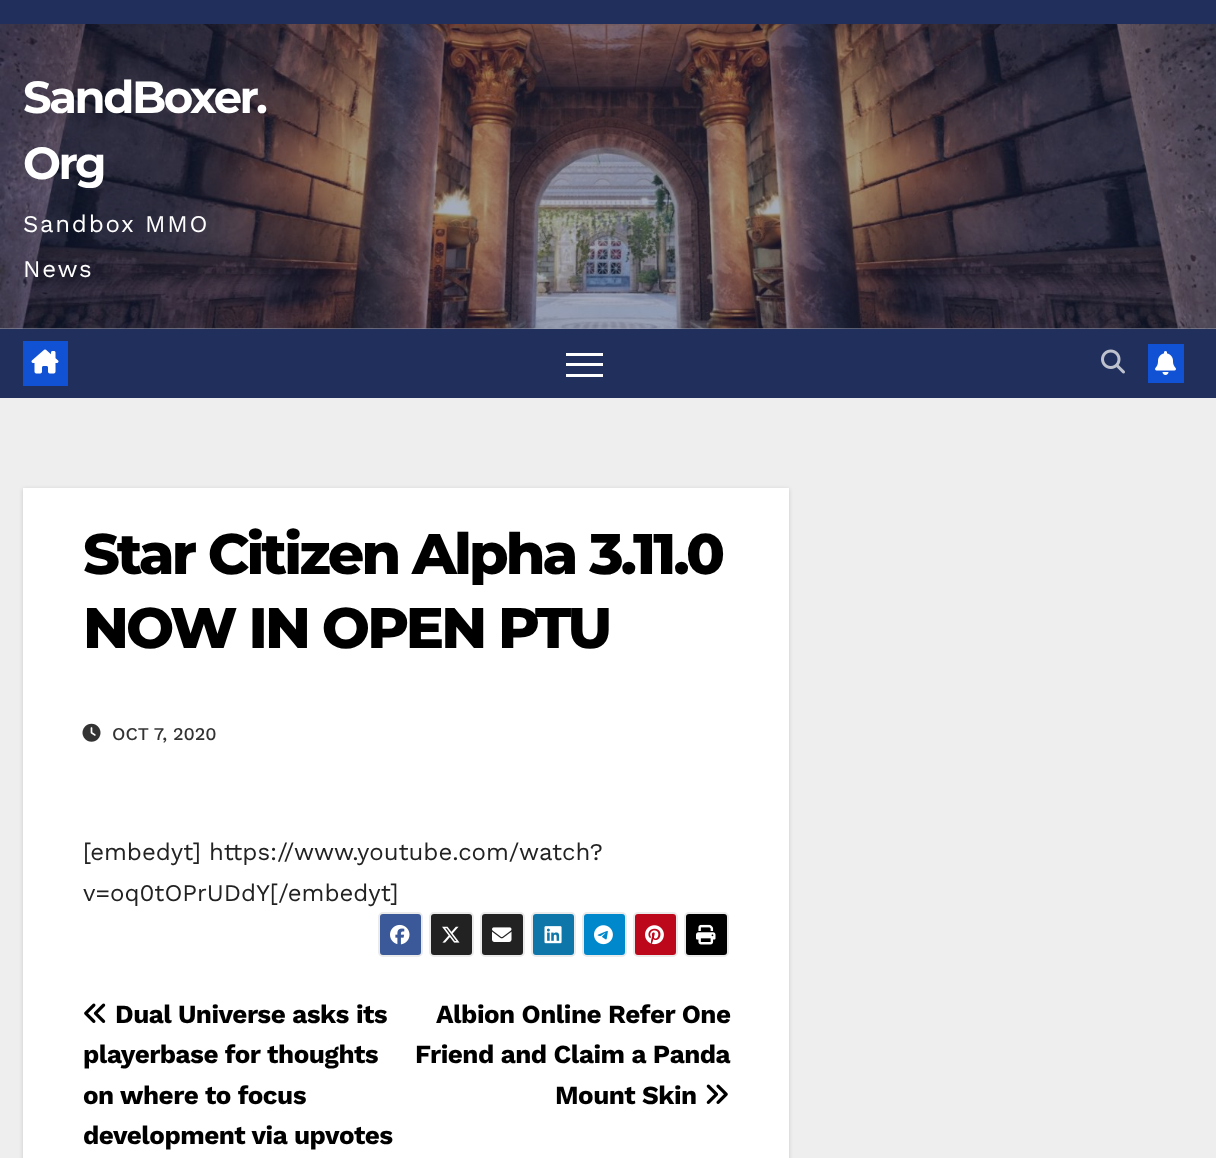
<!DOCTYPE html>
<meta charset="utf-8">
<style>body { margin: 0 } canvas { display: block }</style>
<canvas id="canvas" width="1216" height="1158"></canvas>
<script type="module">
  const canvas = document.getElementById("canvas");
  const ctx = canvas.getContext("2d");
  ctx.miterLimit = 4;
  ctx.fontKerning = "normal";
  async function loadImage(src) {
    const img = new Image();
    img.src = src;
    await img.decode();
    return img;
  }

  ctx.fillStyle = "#eeeeee";
  ctx.fillRect(0, 0, 1216, 1158);
  ctx.fillStyle = "#202f5b";
  ctx.fillRect(0, 0, 1216, 24);
  ctx.drawImage(await loadImage("img1.png"), 0, 24, 1216, 305);
  ctx.fillStyle = "rgba(32, 47, 91, 0.4)";
  ctx.fillRect(0, 24, 1216, 305);
  ctx.letterSpacing = "-2.5px";
  ctx.font = "bold 45px Montserrat";
  ctx.fillStyle = "#ffffff";
  ctx.fillText("SandBoxer.", 23, 113);
  ctx.fillText("Org", 23, 179);
  ctx.letterSpacing = "1.75px";
  ctx.font = "24px Work Sans";
  ctx.fillText("Sandbox MMO", 23, 232);
  ctx.fillText("News", 23, 277);
  ctx.fillStyle = "#202f5b";
  ctx.fillRect(0, 329, 1216, 69);
  ctx.fillStyle = "#1151d3";
  ctx.fillRect(23, 341, 45, 45);
  ctx.drawImage(await loadImage("img2.png"), 31, 349, 28, 25);
  ctx.fillStyle = "#ffffff";
  ctx.fillRect(566, 353, 37, 3);
  ctx.fillRect(566, 363, 37, 3);
  ctx.fillRect(566, 374, 37, 3);
  ctx.drawImage(await loadImage("img3.png"), 1101, 349, 24, 25);
  ctx.fillStyle = "#1151d3";
  ctx.fillRect(1148, 344, 36, 39);
  ctx.drawImage(await loadImage("img4.png"), 1155, 351, 21, 24);
  ctx.fillStyle = "rgba(0, 0, 0, 0.15)";
  ctx.filter = "blur(2px)";
  ctx.beginPath();
  ctx.rect(23, 489, 766, 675);
  ctx.fill();
  ctx.filter = "none";
  ctx.fillStyle = "#ffffff";
  ctx.fillRect(23, 488, 766, 670);
  ctx.letterSpacing = "-2.85px";
  ctx.font = "800 57px Montserrat";
  ctx.fillStyle = "#000000";
  ctx.fillText("Star Citizen Alpha 3.11.0", 83, 574);
  ctx.fillText("NOW IN OPEN PTU", 83, 648);
  ctx.drawImage(await loadImage("img5.png"), 82, 723, 19, 19);
  ctx.letterSpacing = "0px";
  ctx.font = "500 18px Work Sans";
  ctx.fillStyle = "#333333";
  ctx.fillText("OCT 7, 2020", 112, 740);
  ctx.font = "24px Work Sans";
  ctx.fillStyle = "#222222";
  ctx.fillText("[embedyt] https://www.youtube.com/watch?", 83, 860);
  ctx.fillText("v=oq0tOPrUDdY[/embedyt]", 83, 901);
  ctx.fillStyle = "#3b5998";
  ctx.beginPath();
  ctx.roundRect(379, 913, 43, 43, 4);
  ctx.fill();
  ctx.strokeStyle = "#ebebeb";
  ctx.lineWidth = 2;
  ctx.stroke();
  ctx.drawImage(await loadImage("img6.png"), 390, 924, 20, 21);
  ctx.fillStyle = "#222222";
  ctx.beginPath();
  ctx.roundRect(430, 913, 43, 43, 4);
  ctx.fill();
  ctx.stroke();
  ctx.drawImage(await loadImage("img7.png"), 442, 926, 18, 17);
  ctx.beginPath();
  ctx.roundRect(481, 913, 43, 43, 4);
  ctx.fill();
  ctx.stroke();
  ctx.drawImage(await loadImage("img8.png"), 492, 927, 20, 15);
  ctx.fillStyle = "#0e76a8";
  ctx.beginPath();
  ctx.roundRect(532, 913, 43, 43, 4);
  ctx.fill();
  ctx.stroke();
  ctx.drawImage(await loadImage("img9.png"), 544, 926, 18, 18);
  ctx.fillStyle = "#0088cc";
  ctx.beginPath();
  ctx.roundRect(583, 913, 43, 43, 4);
  ctx.fill();
  ctx.stroke();
  ctx.drawImage(await loadImage("img10.png"), 594, 925, 19, 20);
  ctx.fillStyle = "#bd081c";
  ctx.beginPath();
  ctx.roundRect(634, 913, 43, 43, 4);
  ctx.fill();
  ctx.stroke();
  ctx.drawImage(await loadImage("img11.png"), 645, 925, 19, 20);
  ctx.fillStyle = "#000000";
  ctx.beginPath();
  ctx.roundRect(685, 913, 43, 43, 4);
  ctx.fill();
  ctx.stroke();
  ctx.drawImage(await loadImage("img12.png"), 696, 924, 20, 21);
  ctx.drawImage(await loadImage("img13.png"), 84, 1003, 22, 20);
  ctx.letterSpacing = "-0.5px";
  ctx.font = "bold 26px Work Sans";
  ctx.fillText("Dual Universe asks its", 115, 1023);
  ctx.fillText("playerbase for thoughts", 83, 1063);
  ctx.fillText("on where to focus", 83, 1104);
  ctx.fillText("development via upvotes", 83, 1144);
  ctx.fillText("Albion Online Refer One", 436, 1023);
  ctx.fillText("Friend and Claim a Panda", 415, 1063);
  ctx.fillText("Mount Skin", 555, 1104);
  ctx.drawImage(await loadImage("img14.png"), 706, 1084, 22, 20);
</script>
